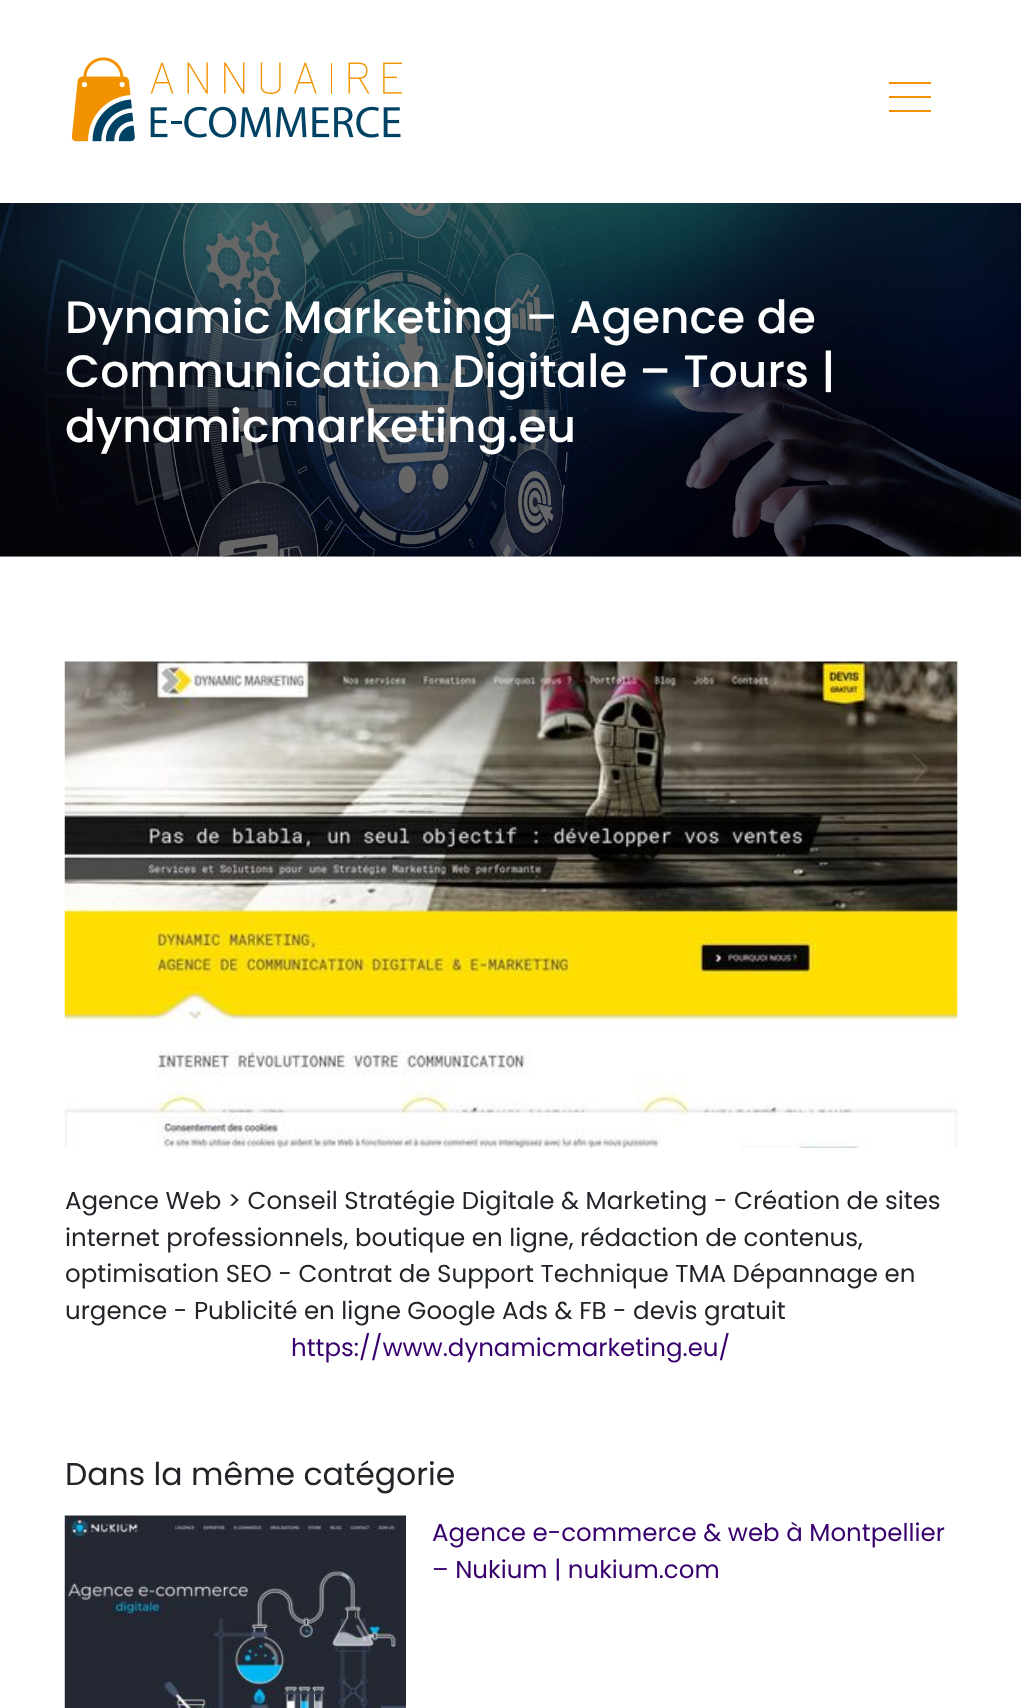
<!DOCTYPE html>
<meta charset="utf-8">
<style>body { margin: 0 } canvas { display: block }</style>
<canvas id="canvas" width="1021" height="1708"></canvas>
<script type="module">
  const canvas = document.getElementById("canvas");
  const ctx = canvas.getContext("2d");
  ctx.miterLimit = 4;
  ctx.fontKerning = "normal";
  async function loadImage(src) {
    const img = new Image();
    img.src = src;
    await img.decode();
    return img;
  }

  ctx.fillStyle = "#ffffff";
  ctx.fillRect(0, 0, 1021, 1708);
  ctx.drawImage(await loadImage("img1.png"), 71, 57, 332, 85);
  ctx.fillStyle = "#f39200";
  ctx.fillRect(889, 82, 42, 2);
  ctx.fillRect(889, 96, 42, 2);
  ctx.fillRect(889, 110, 42, 2);
  ctx.fillStyle = "#eeeeee";
  ctx.fillRect(0, 556, 1021, 1);
  ctx.drawImage(await loadImage("img2.png"), 0, 203, 1021, 354);
  ctx.font = "500 45.5px Poppins";
  ctx.fillStyle = "#ffffff";
  ctx.fillText("Dynamic Marketing – Agence de", 65, 333);
  ctx.fillText("Communication Digitale – Tours |", 65, 387);
  ctx.fillText("dynamicmarketing.eu", 65, 442);
  ctx.drawImage(await loadImage("img3.png"), 64, 661, 894, 487);
  ctx.font = "24.5px Poppins";
  ctx.fillStyle = "#212529";
  ctx.fillText("Agence Web > Conseil Stratégie Digitale & Marketing - Création de sites", 65, 1209);
  ctx.fillText("internet professionnels, boutique en ligne, rédaction de contenus,", 65, 1246);
  ctx.fillText("optimisation SEO - Contrat de Support Technique TMA Dépannage en", 65, 1282);
  ctx.fillText("urgence - Publicité en ligne Google Ads & FB - devis gratuit", 65, 1319);
  ctx.fillStyle = "#38006d";
  ctx.fillText("https://www.dynamicmarketing.eu/", 291, 1356);
  ctx.font = "31.5px Poppins";
  ctx.fillStyle = "#212529";
  ctx.fillText("Dans la même catégorie", 65, 1485);
  ctx.drawImage(await loadImage("img4.png"), 64, 1515, 342, 193);
  ctx.font = "24.5px Poppins";
  ctx.fillStyle = "#38006d";
  ctx.fillText("Agence e-commerce & web à Montpellier", 432, 1541);
  ctx.fillText("– Nukium | nukium.com", 432, 1578);
</script>
